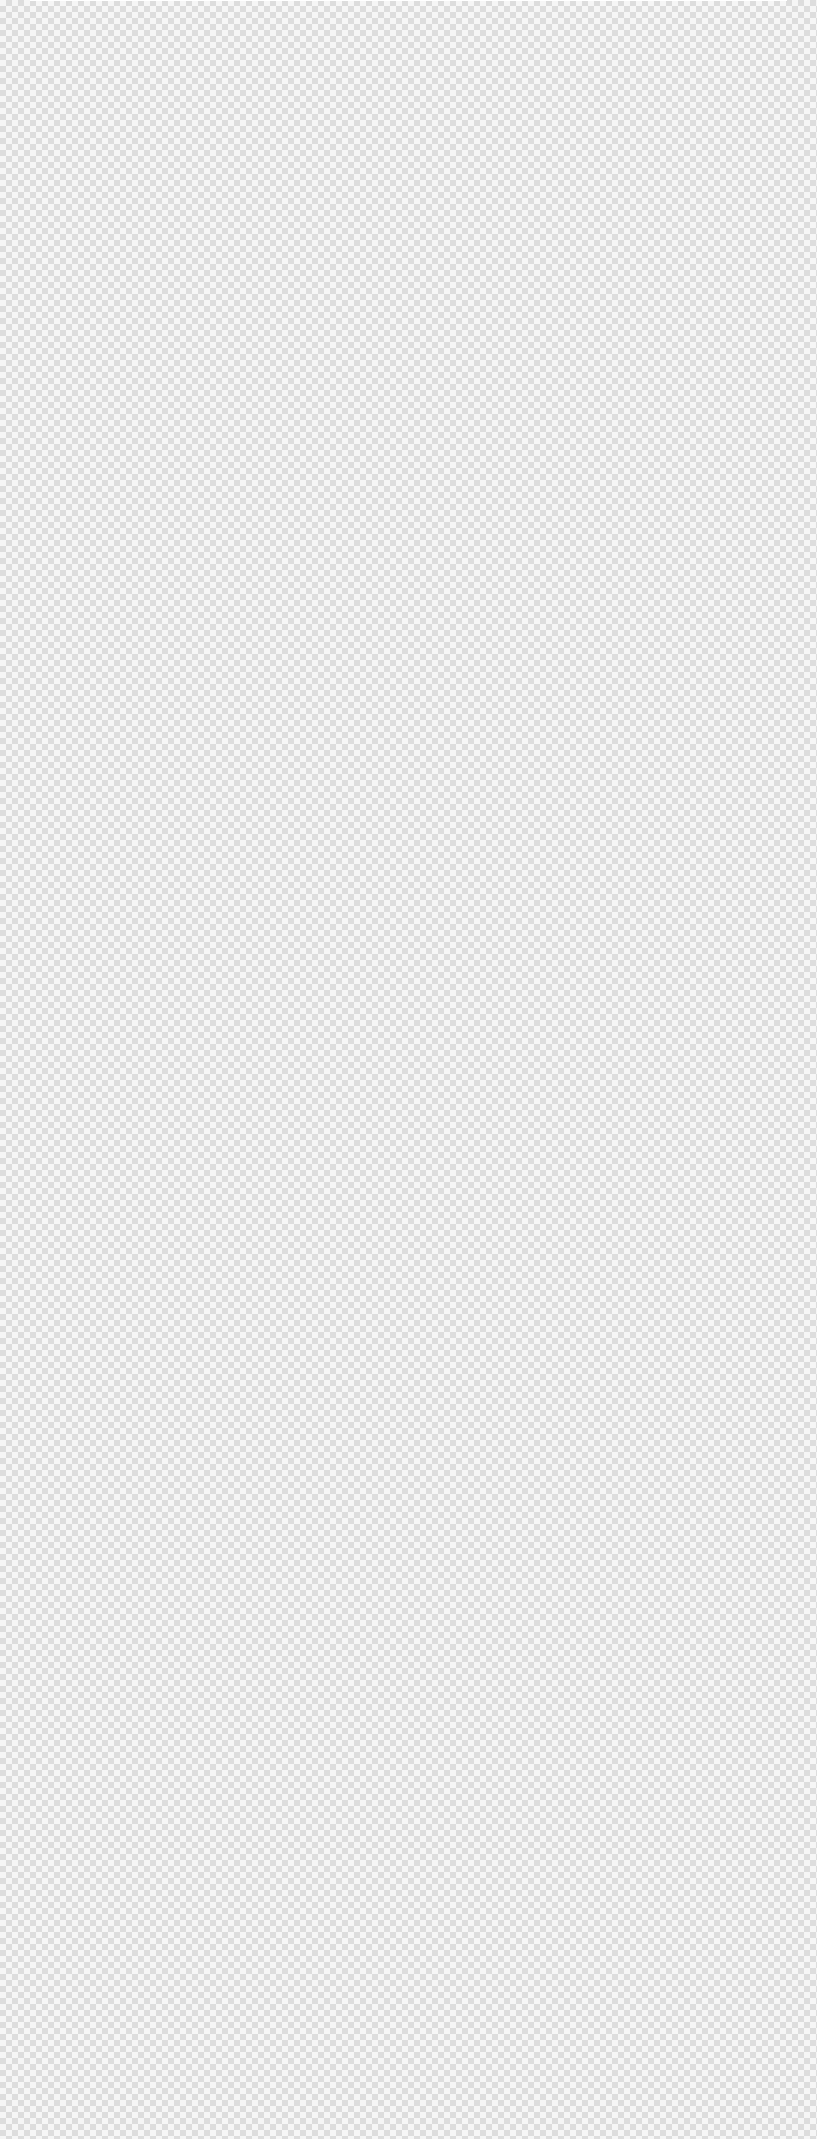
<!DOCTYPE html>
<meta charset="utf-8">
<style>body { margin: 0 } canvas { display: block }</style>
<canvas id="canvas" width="817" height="2139"></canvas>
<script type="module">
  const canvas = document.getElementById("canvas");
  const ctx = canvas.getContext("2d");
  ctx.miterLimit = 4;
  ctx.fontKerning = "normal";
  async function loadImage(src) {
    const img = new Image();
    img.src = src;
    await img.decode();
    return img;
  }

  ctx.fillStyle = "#ffffff";
  ctx.fillRect(0, 0, 817, 2139);
  ctx.drawImage(await loadImage("img1.png"), 0, 0, 817, 2139);
  ctx.fillRect(30, 0, 757, 1);
</script>
